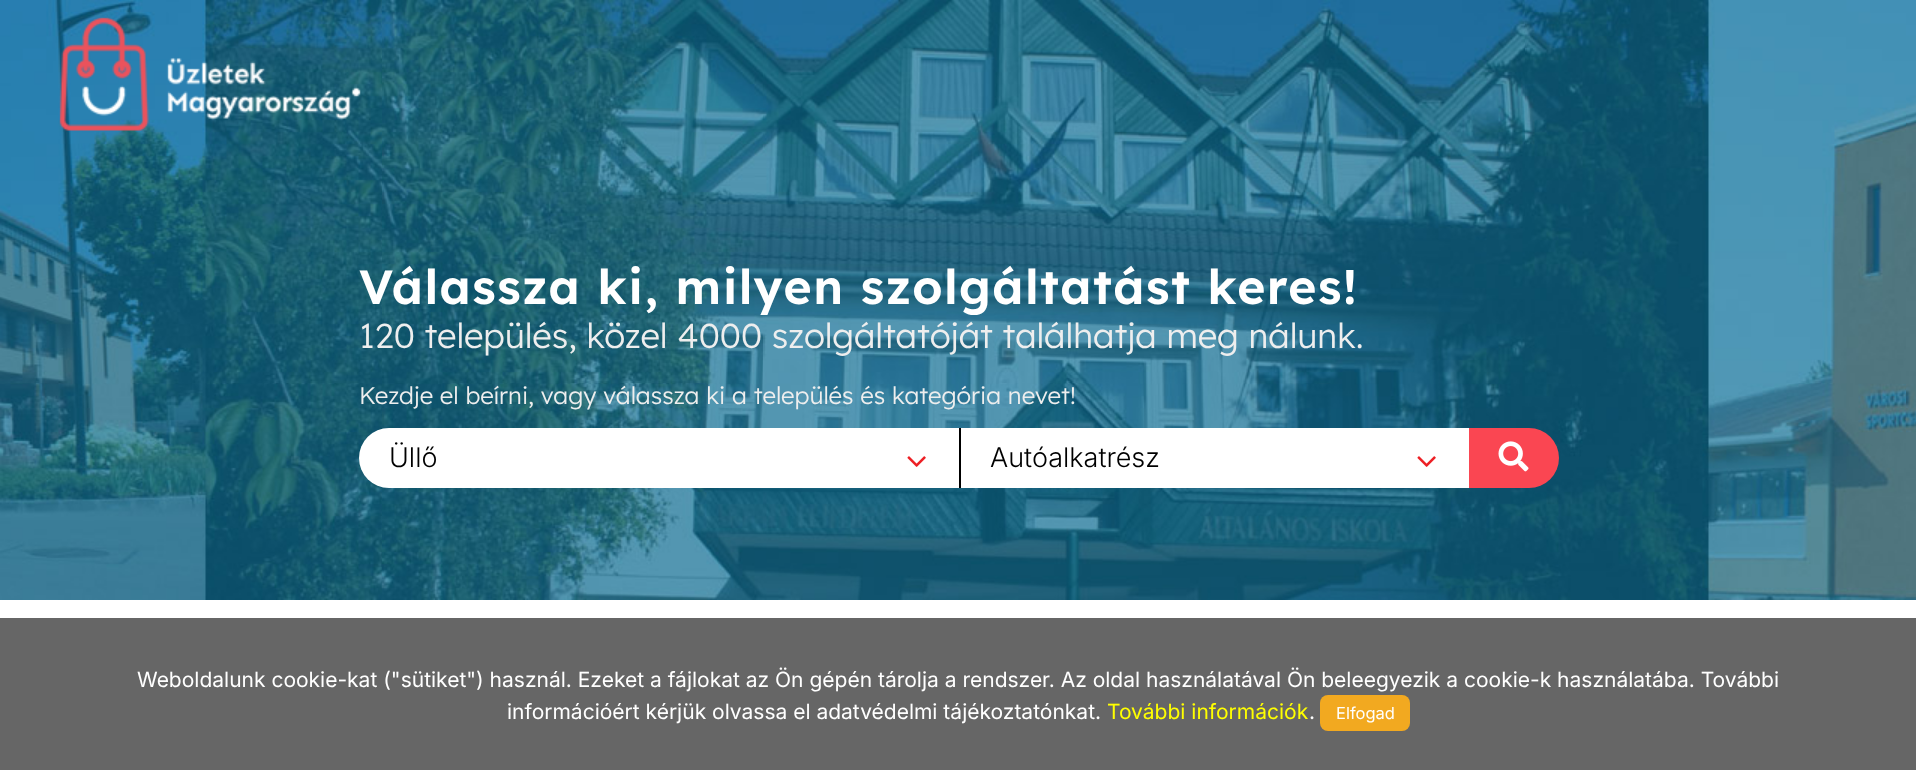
<!DOCTYPE html>
<meta charset="utf-8">
<style>body { margin: 0 } canvas { display: block }</style>
<canvas id="canvas" width="1916" height="770"></canvas>
<script type="module">
  const canvas = document.getElementById("canvas");
  const ctx = canvas.getContext("2d");
  ctx.miterLimit = 4;
  ctx.fontKerning = "normal";
  async function loadImage(src) {
    const img = new Image();
    img.src = src;
    await img.decode();
    return img;
  }

  ctx.fillStyle = "#ffffff";
  ctx.fillRect(0, 0, 1916, 770);
  ctx.drawImage(await loadImage("img2.png"), 0, 0, 1916, 600);
  ctx.drawImage(await loadImage("img1.png"), 59, 17, 302, 114);
  ctx.letterSpacing = "1.5px";
  ctx.font = "600 48px Lexend";
  ctx.fillText("Válassza ki, milyen szolgáltatást keres!", 359, 304);
  ctx.letterSpacing = "0px";
  ctx.font = "300 34.5px Lexend";
  ctx.fillStyle = "#eeeeee";
  ctx.fillText("120 település, közel 4000 szolgáltatóját találhatja meg nálunk.", 359, 348);
  ctx.font = "300 24px Lexend";
  ctx.fillText("Kezdje el beírni, vagy válassza ki a település és kategória nevet!", 359, 404);
  ctx.fillStyle = "#ffffff";
  ctx.beginPath();
  ctx.roundRect(359, 428, 600, 60, [30, 0, 0, 30]);
  ctx.fill();
  ctx.font = "300 27px Inter";
  ctx.fillStyle = "#000000";
  ctx.fillText("Üllő", 389, 467);
  ctx.drawImage(await loadImage("img3.png"), 907, 456, 19, 11);
  ctx.fillStyle = "#ffffff";
  ctx.fillRect(961, 428, 508, 60);
  ctx.fillStyle = "#000000";
  ctx.fillRect(959, 428, 2, 60);
  ctx.fillText("Autóalkatrész", 990, 467);
  ctx.drawImage(await loadImage("img3.png"), 1417, 456, 19, 11);
  ctx.fillStyle = "#fa4652";
  ctx.beginPath();
  ctx.roundRect(1469, 428, 90, 60, [0, 30, 30, 0]);
  ctx.fill();
  ctx.drawImage(await loadImage("img4.png"), 1498, 441, 31, 31);
  ctx.fillStyle = "#666666";
  ctx.fillRect(0, 618, 1916, 152);
  ctx.font = "21px Inter";
  ctx.fillStyle = "#ffffff";
  ctx.fillText("Weboldalunk cookie-kat (\"sütiket\") használ. Ezeket a fájlokat az Ön gépén tárolja a rendszer. Az oldal használatával Ön beleegyezik a cookie-k használatába. További", 137, 687);
  ctx.fillText("információért kérjük olvassa el adatvédelmi tájékoztatónkat.", 507, 719);
  ctx.fillStyle = "#ffff00";
  ctx.fillText("További információk", 1107, 719);
  ctx.fillStyle = "#ffffff";
  ctx.fillText(".", 1309, 719);
  ctx.fillStyle = "#f2a920";
  ctx.beginPath();
  ctx.roundRect(1320, 695, 90, 36, 8);
  ctx.fill();
  ctx.font = "16.5px Inter";
  ctx.fillStyle = "#ffffff";
  ctx.fillText("Elfogad", 1336, 719);
</script>
